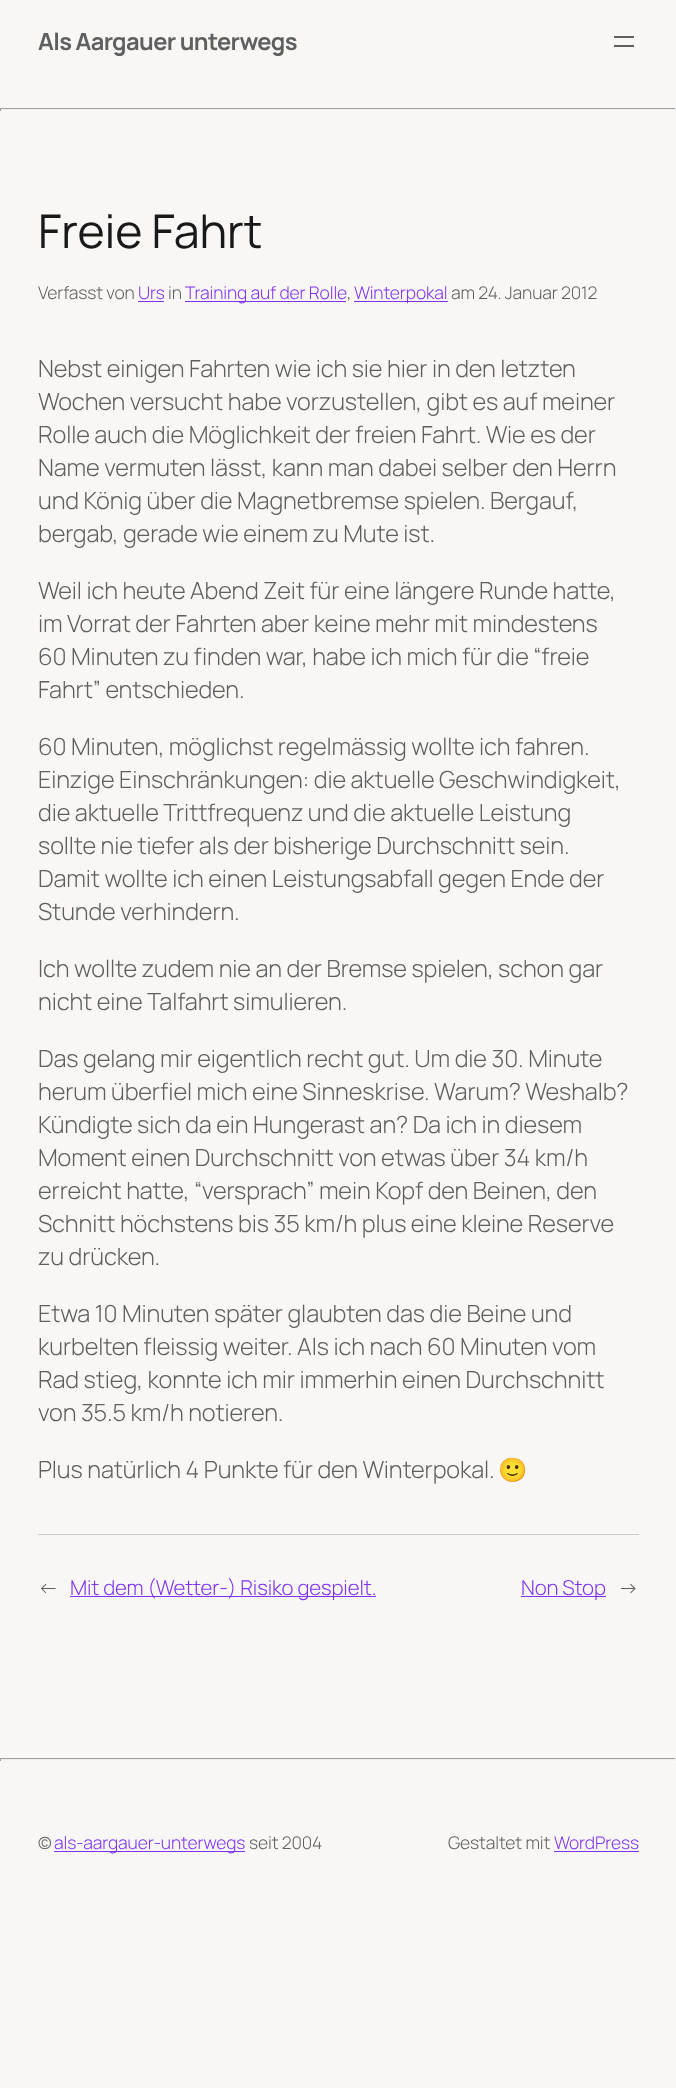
<!DOCTYPE html>
<meta charset="utf-8">
<style>body { margin: 0 } canvas { display: block }</style>
<canvas id="canvas" width="676" height="2088"></canvas>
<script type="module">
  const canvas = document.getElementById("canvas");
  const ctx = canvas.getContext("2d");
  ctx.miterLimit = 4;
  ctx.fontKerning = "normal";

  ctx.fillStyle = "#f8f7f5";
  ctx.fillRect(0, 0, 676, 2088);
  ctx.letterSpacing = "-0.6px";
  ctx.font = "bold 23.6px Manrope";
  ctx.fillStyle = "#5f5f5f";
  ctx.fillText("Als Aargauer unterwegs", 38, 50);
  ctx.fillRect(614, 36, 20, 2);
  ctx.fillRect(614, 45, 20, 2);
  ctx.fillStyle = "#9f9f9f";
  ctx.fillRect(0, 108, 676, 1);
  ctx.fillStyle = "#eeeeee";
  ctx.fillRect(675, 108, 1, 3);
  ctx.fillRect(0, 109, 676, 1);
  ctx.fillStyle = "#9f9f9f";
  ctx.fillRect(0, 108, 1, 3);
  ctx.letterSpacing = "-0.12px";
  ctx.font = "46.5px Manrope";
  ctx.fillStyle = "#191919";
  ctx.fillText("Freie Fahrt", 38, 248);
  ctx.font = "300 17.5px Manrope";
  ctx.fillStyle = "#5f5f5f";
  ctx.fillText("Verfasst von", 38, 299);
  ctx.fillStyle = "#8033f2";
  ctx.fillText("Urs", 138, 299);
  ctx.fillRect(138, 301, 26, 1);
  ctx.fillStyle = "#5f5f5f";
  ctx.fillText("in", 168, 299);
  ctx.fillStyle = "#8033f2";
  ctx.fillRect(185, 301, 161, 1);
  ctx.fillText("Training auf der Rolle", 185, 299);
  ctx.fillStyle = "#5f5f5f";
  ctx.fillText(",", 347, 299);
  ctx.fillStyle = "#8033f2";
  ctx.fillRect(354, 301, 94, 1);
  ctx.fillText("Winterpokal", 354, 299);
  ctx.fillStyle = "#5f5f5f";
  ctx.fillText("am 24. Januar 2012", 451, 299);
  ctx.font = "300 23.6px Manrope";
  ctx.fillText("Nebst einigen Fahrten wie ich sie hier in den letzten", 38, 377);
  ctx.fillText("Wochen versucht habe vorzustellen, gibt es auf meiner", 38, 410);
  ctx.fillText("Rolle auch die Möglichkeit der freien Fahrt. Wie es der", 38, 443);
  ctx.fillText("Name vermuten lässt, kann man dabei selber den Herrn", 38, 476);
  ctx.fillText("und König über die Magnetbremse spielen. Bergauf,", 38, 509);
  ctx.fillText("bergab, gerade wie einem zu Mute ist.", 38, 542);
  ctx.fillText("Weil ich heute Abend Zeit für eine längere Runde hatte,", 38, 599);
  ctx.fillText("im Vorrat der Fahrten aber keine mehr mit mindestens", 38, 632);
  ctx.fillText("60 Minuten zu finden war, habe ich mich für die “freie", 38, 665);
  ctx.fillText("Fahrt” entschieden.", 38, 698);
  ctx.fillText("60 Minuten, möglichst regelmässig wollte ich fahren.", 38, 755);
  ctx.fillText("Einzige Einschränkungen: die aktuelle Geschwindigkeit,", 38, 788);
  ctx.fillText("die aktuelle Trittfrequenz und die aktuelle Leistung", 38, 821);
  ctx.fillText("sollte nie tiefer als der bisherige Durchschnitt sein.", 38, 854);
  ctx.fillText("Damit wollte ich einen Leistungsabfall gegen Ende der", 38, 887);
  ctx.fillText("Stunde verhindern.", 38, 920);
  ctx.fillText("Ich wollte zudem nie an der Bremse spielen, schon gar", 38, 977);
  ctx.fillText("nicht eine Talfahrt simulieren.", 38, 1010);
  ctx.fillText("Das gelang mir eigentlich recht gut. Um die 30. Minute", 38, 1067);
  ctx.fillText("herum überfiel mich eine Sinneskrise. Warum? Weshalb?", 38, 1100);
  ctx.fillText("Kündigte sich da ein Hungerast an? Da ich in diesem", 38, 1133);
  ctx.fillText("Moment einen Durchschnitt von etwas über 34 km/h", 38, 1166);
  ctx.fillText("erreicht hatte, “versprach” mein Kopf den Beinen, den", 38, 1199);
  ctx.fillText("Schnitt höchstens bis 35 km/h plus eine kleine Reserve", 38, 1232);
  ctx.fillText("zu drücken.", 38, 1265);
  ctx.fillText("Etwa 10 Minuten später glaubten das die Beine und", 38, 1322);
  ctx.fillText("kurbelten fleissig weiter. Als ich nach 60 Minuten vom", 38, 1355);
  ctx.fillText("Rad stieg, konnte ich mir immerhin einen Durchschnitt", 38, 1388);
  ctx.fillText("von 35.5 km/h notieren.", 38, 1421);
  ctx.fillText("Plus natürlich 4 Punkte für den Winterpokal.", 38, 1478);
  ctx.font = "23.6px Noto Color Emoji";
  ctx.fillText("🙂", 498, 1478);
  ctx.fillStyle = "#cbcbc9";
  ctx.fillRect(38, 1534, 601, 1);
  ctx.font = "300 20.5px Manrope";
  ctx.fillStyle = "#5f5f5f";
  ctx.fillText("←", 38, 1595);
  ctx.fillStyle = "#8033f2";
  ctx.fillRect(70, 1596, 306, 1);
  ctx.fillText("Mit dem (Wetter-) Risiko gespielt.", 70, 1595);
  ctx.fillRect(521, 1596, 85, 1);
  ctx.fillText("Non Stop", 521, 1595);
  ctx.fillStyle = "#5f5f5f";
  ctx.fillText("→", 618, 1595);
  ctx.fillStyle = "#9f9f9f";
  ctx.fillRect(0, 1758, 676, 1);
  ctx.fillStyle = "#eeeeee";
  ctx.fillRect(675, 1758, 1, 3);
  ctx.fillRect(0, 1759, 676, 1);
  ctx.fillStyle = "#9f9f9f";
  ctx.fillRect(0, 1758, 1, 3);
  ctx.font = "300 17.5px Manrope";
  ctx.fillStyle = "#5f5f5f";
  ctx.fillText("©", 38, 1849);
  ctx.fillStyle = "#8033f2";
  ctx.fillRect(54, 1851, 191, 1);
  ctx.fillText("als-aargauer-unterwegs", 54, 1849);
  ctx.fillStyle = "#5f5f5f";
  ctx.fillText("seit 2004", 249, 1849);
  ctx.fillText("Gestaltet mit", 448, 1849);
  ctx.fillStyle = "#8033f2";
  ctx.fillText("WordPress", 554, 1849);
  ctx.fillRect(554, 1851, 85, 1);
</script>
